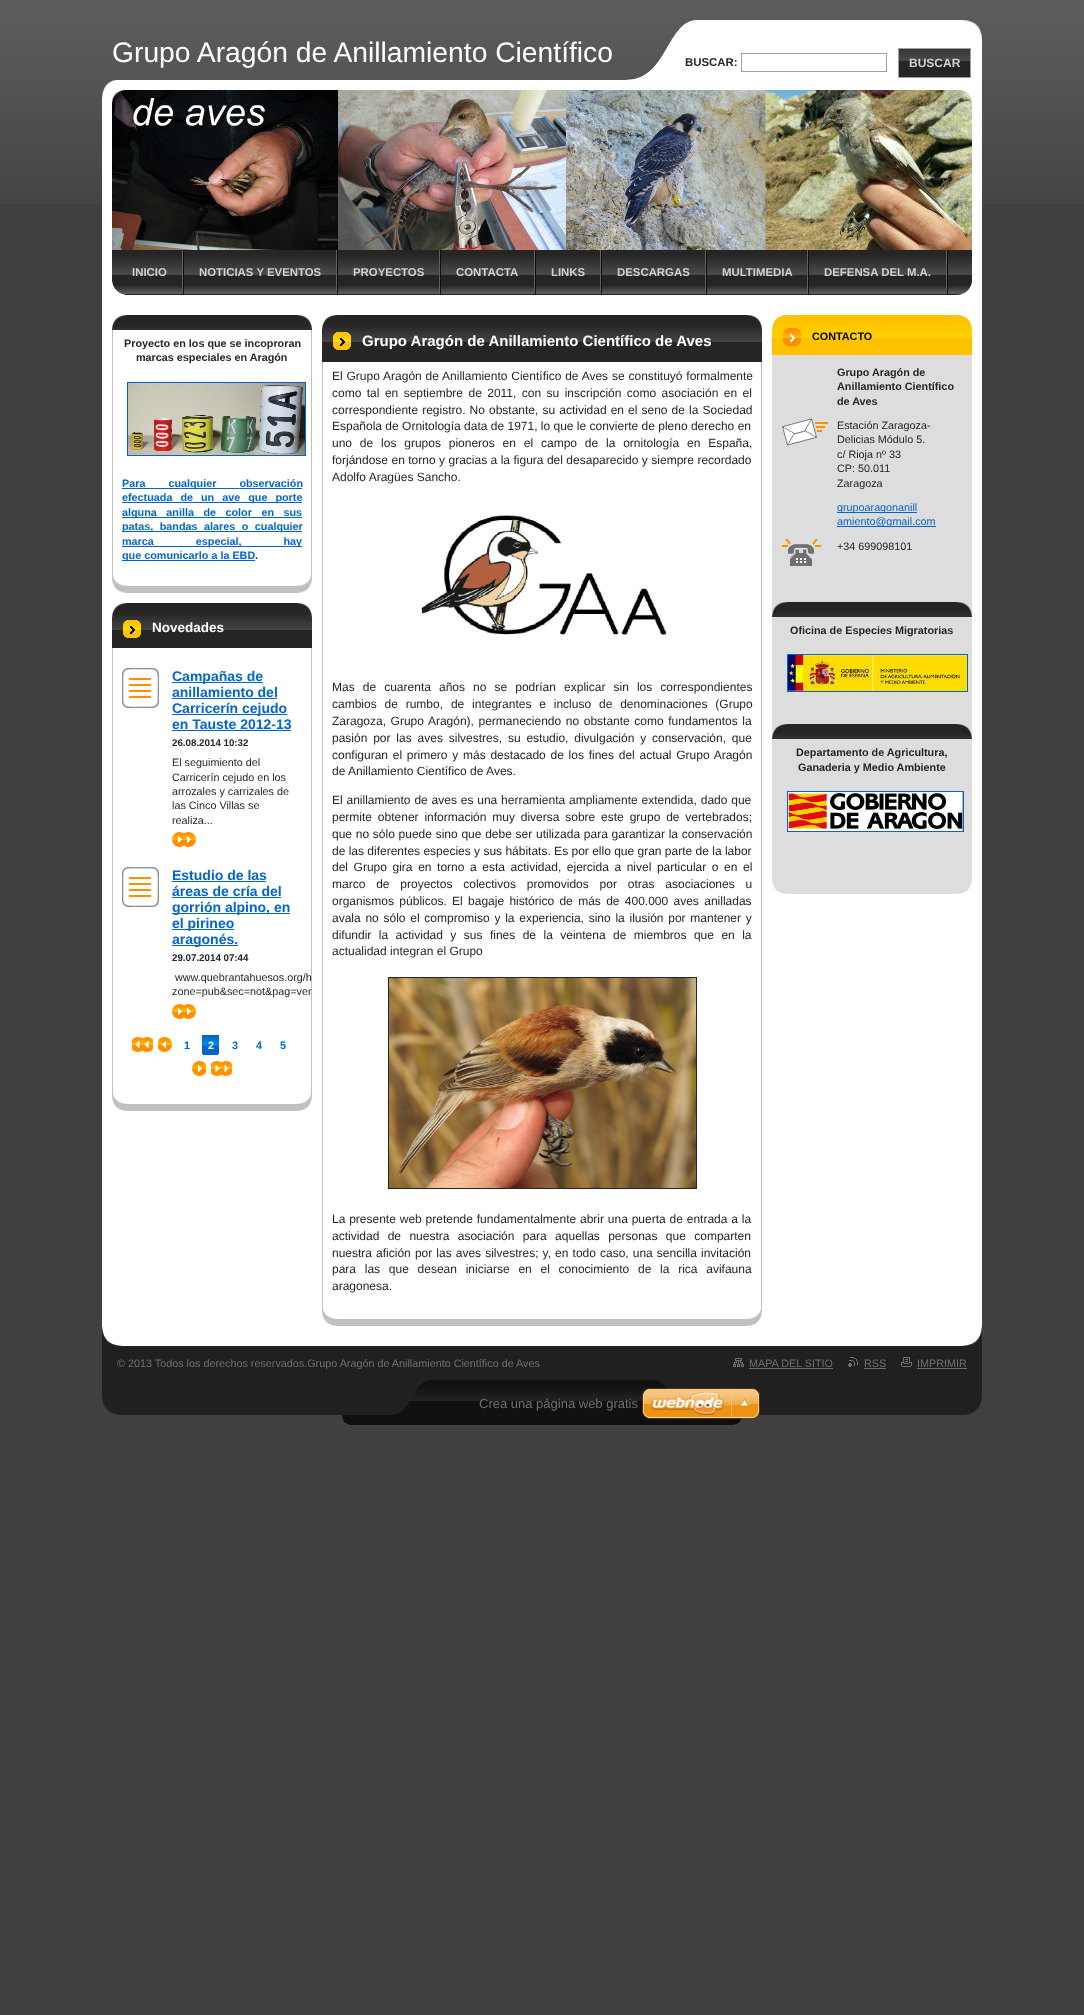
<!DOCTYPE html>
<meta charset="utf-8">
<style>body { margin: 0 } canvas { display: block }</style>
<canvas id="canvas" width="1084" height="2015"></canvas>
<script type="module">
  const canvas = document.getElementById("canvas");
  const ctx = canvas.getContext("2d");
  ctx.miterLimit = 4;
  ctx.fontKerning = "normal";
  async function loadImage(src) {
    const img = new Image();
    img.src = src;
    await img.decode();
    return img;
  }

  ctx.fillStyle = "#404040";
  ctx.fillRect(0, 0, 1084, 2015);
  ctx.drawImage(await loadImage("img1.png"), 0, 0, 1084, 204);
  ctx.font = "28.25px Liberation Sans";
  ctx.fillStyle = "#ffffff";
  ctx.fillText("Grupo Aragón de Anillamiento Científico", 112, 62);
  ctx.drawImage(await loadImage("img2.png"), 102, 80, 880, 170);
  ctx.drawImage(await loadImage("img4.png"), 112, 90, 860, 160);
  ctx.drawImage(await loadImage("img3.png"), 102, 80, 870, 23);
  ctx.drawImage(await loadImage("img5.png"), 102, 250, 880, 45);
  ctx.fillStyle = "#101010";
  ctx.fillRect(183, 250, 1, 44);
  ctx.fillStyle = "#5f5f5f";
  ctx.fillRect(182, 250, 1, 44);
  ctx.font = "bold 11.4px Liberation Sans";
  ctx.fillStyle = "#d0d0d0";
  ctx.fillText("INICIO", 132, 276);
  ctx.fillStyle = "#101010";
  ctx.fillRect(337, 250, 1, 44);
  ctx.fillStyle = "#5f5f5f";
  ctx.fillRect(336, 250, 1, 44);
  ctx.fillStyle = "#d0d0d0";
  ctx.fillText("NOTICIAS Y EVENTOS", 199, 276);
  ctx.fillStyle = "#101010";
  ctx.fillRect(440, 250, 1, 44);
  ctx.fillStyle = "#5f5f5f";
  ctx.fillRect(439, 250, 1, 44);
  ctx.fillStyle = "#d0d0d0";
  ctx.fillText("PROYECTOS", 353, 276);
  ctx.fillStyle = "#101010";
  ctx.fillRect(535, 250, 1, 44);
  ctx.fillStyle = "#5f5f5f";
  ctx.fillRect(534, 250, 1, 44);
  ctx.fillStyle = "#d0d0d0";
  ctx.fillText("CONTACTA", 456, 276);
  ctx.fillStyle = "#101010";
  ctx.fillRect(601, 250, 1, 44);
  ctx.fillStyle = "#5f5f5f";
  ctx.fillRect(600, 250, 1, 44);
  ctx.fillStyle = "#d0d0d0";
  ctx.fillText("LINKS", 551, 276);
  ctx.fillStyle = "#101010";
  ctx.fillRect(706, 250, 1, 44);
  ctx.fillStyle = "#5f5f5f";
  ctx.fillRect(705, 250, 1, 44);
  ctx.fillStyle = "#d0d0d0";
  ctx.fillText("DESCARGAS", 617, 276);
  ctx.fillStyle = "#101010";
  ctx.fillRect(808, 250, 1, 44);
  ctx.fillStyle = "#5f5f5f";
  ctx.fillRect(807, 250, 1, 44);
  ctx.fillStyle = "#d0d0d0";
  ctx.fillText("MULTIMEDIA", 722, 276);
  ctx.fillStyle = "#101010";
  ctx.fillRect(947, 250, 1, 44);
  ctx.fillStyle = "#5f5f5f";
  ctx.fillRect(946, 250, 1, 44);
  ctx.fillStyle = "#d0d0d0";
  ctx.fillText("DEFENSA DEL M.A.", 824, 276);
  ctx.drawImage(await loadImage("img6.png"), 112, 281, 13, 14);
  ctx.drawImage(await loadImage("img7.png"), 627, 20, 355, 60);
  ctx.fillStyle = "#252525";
  ctx.fillText("BUSCAR:", 685, 66);
  ctx.strokeStyle = "#9f9f9f";
  ctx.strokeRect(741.5, 53.5, 145, 18);
  ctx.fillRect(899, 61, 71, 16);
  ctx.drawImage(await loadImage("img8.png"), 899, 49, 71, 12);
  ctx.strokeRect(898.5, 48.5, 72, 29);
  ctx.font = "bold 12px Liberation Sans";
  ctx.fillStyle = "#d0d0d0";
  ctx.fillText("BUSCAR", 909, 67);
  ctx.fillStyle = "#ffffff";
  ctx.fillRect(102, 295, 880, 1051);
  ctx.drawImage(await loadImage("img9.png"), 102, 1326, 880, 20);
  ctx.drawImage(await loadImage("img10.png"), 112, 315, 200, 15);
  ctx.fillStyle = "#c0c0c0";
  ctx.fillRect(311, 330, 1, 246);
  ctx.fillRect(112, 330, 1, 246);
  ctx.drawImage(await loadImage("img11.png"), 112, 576, 200, 17);
  ctx.font = "bold 10.8px Liberation Sans";
  ctx.fillStyle = "#252525";
  ctx.fillText("Proyecto en los que se incoproran", 124, 347);
  ctx.fillText("marcas especiales en Aragón", 136, 361);
  ctx.strokeStyle = "#0066cc";
  ctx.strokeRect(127.5, 382.5, 178, 73);
  ctx.drawImage(await loadImage("img12.png"), 128, 383, 177, 72);
  ctx.fillStyle = "#0066cc";
  ctx.fillRect(122, 488, 180, 1);
  ctx.wordSpacing = "20px";
  ctx.fillText("Para cualquier observación", 122, 487);
  ctx.fillRect(122, 502, 180, 1);
  ctx.wordSpacing = "5px";
  ctx.fillText("efectuada de un ave que porte", 122, 501);
  ctx.fillRect(122, 517, 180, 1);
  ctx.wordSpacing = "6.5px";
  ctx.fillText("alguna anilla de color en sus", 122, 516);
  ctx.fillRect(122, 531, 180, 1);
  ctx.wordSpacing = "3.5px";
  ctx.fillText("patas, bandas alares o cualquier", 122, 530);
  ctx.fillRect(122, 546, 180, 1);
  ctx.wordSpacing = "39px";
  ctx.fillText("marca especial, hay", 122, 545);
  ctx.fillRect(122, 560, 133, 1);
  ctx.wordSpacing = "0px";
  ctx.fillText("que comunicarlo a la EBD", 122, 559);
  ctx.fillStyle = "#252525";
  ctx.fillText(".", 255, 559);
  ctx.drawImage(await loadImage("img10.png"), 112, 603, 200, 15);
  ctx.fillStyle = "#c0c0c0";
  ctx.fillRect(311, 648, 1, 446);
  ctx.fillRect(112, 648, 1, 446);
  ctx.drawImage(await loadImage("img11.png"), 112, 1094, 200, 17);
  ctx.fillStyle = "#252525";
  ctx.fillRect(112, 638, 200, 10);
  ctx.drawImage(await loadImage("img13.png"), 112, 618, 200, 20);
  ctx.font = "bold 13.5px Liberation Sans";
  ctx.fillStyle = "#ffffff";
  ctx.fillText("Novedades", 152, 632);
  ctx.drawImage(await loadImage("img14.png"), 122, 668, 37, 40);
  ctx.fillStyle = "#0066cc";
  ctx.fillRect(172, 682, 91, 1);
  ctx.font = "bold 14px Liberation Sans";
  ctx.fillText("Campañas de", 172, 681);
  ctx.fillText("anillamiento del", 172, 697);
  ctx.fillRect(172, 698, 105, 1);
  ctx.fillRect(172, 714, 115, 1);
  ctx.fillText("Carricerín cejudo", 172, 713);
  ctx.fillText("en Tauste 2012-13", 172, 729);
  ctx.fillRect(172, 730, 119, 1);
  ctx.font = "bold 9.75px Liberation Sans";
  ctx.fillStyle = "#252525";
  ctx.fillText("26.08.2014 10:32", 172, 746);
  ctx.font = "10.8px Liberation Sans";
  ctx.fillText("El seguimiento del", 172, 766);
  ctx.fillText("Carricerín cejudo en los", 172, 781);
  ctx.fillText("arrozales y carrizales de", 172, 795);
  ctx.fillText("las Cinco Villas se", 172, 809);
  ctx.fillText("realiza...", 172, 824);
  ctx.drawImage(await loadImage("img15.png"), 172, 832, 24, 15);
  ctx.drawImage(await loadImage("img14.png"), 122, 867, 37, 40);
  ctx.font = "bold 14px Liberation Sans";
  ctx.fillStyle = "#0066cc";
  ctx.fillText("Estudio de las", 172, 880);
  ctx.fillRect(172, 881, 94, 1);
  ctx.fillText("áreas de cría del", 172, 896);
  ctx.fillRect(172, 897, 109, 1);
  ctx.fillRect(172, 913, 118, 1);
  ctx.fillText("gorrión alpino, en", 172, 912);
  ctx.fillRect(172, 929, 62, 1);
  ctx.fillText("el pirineo", 172, 928);
  ctx.fillRect(172, 945, 66, 1);
  ctx.fillText("aragonés.", 172, 944);
  ctx.font = "bold 9.75px Liberation Sans";
  ctx.fillStyle = "#252525";
  ctx.fillText("29.07.2014 07:44", 172, 961);
  ctx.font = "10.8px Liberation Sans";
  ctx.fillText("www.quebrantahuesos.org/h", 175, 981);
  ctx.fillText("zone=pub&sec=not&pag=ver", 172, 995);
  ctx.drawImage(await loadImage("img15.png"), 172, 1004, 24, 15);
  ctx.drawImage(await loadImage("img16.png"), 132, 1037, 21, 15);
  ctx.drawImage(await loadImage("img17.png"), 158, 1037, 14, 15);
  ctx.drawImage(await loadImage("img18.png"), 202, 1035, 17, 19);
  ctx.font = "bold 10.8px Liberation Sans";
  ctx.fillStyle = "#0066cc";
  ctx.fillText("1", 184, 1049);
  ctx.fillRect(203, 1035, 15, 20);
  ctx.drawImage(await loadImage("img19.png"), 203, 1037, 15, 9);
  ctx.fillStyle = "#ffffff";
  ctx.fillText("2", 208, 1049);
  ctx.fillStyle = "#0066cc";
  ctx.fillText("3", 232, 1049);
  ctx.fillText("4", 256, 1049);
  ctx.fillText("5", 280, 1049);
  ctx.drawImage(await loadImage("img20.png"), 192, 1061, 14, 15);
  ctx.drawImage(await loadImage("img21.png"), 211, 1061, 21, 15);
  ctx.drawImage(await loadImage("img22.png"), 322, 315, 440, 15);
  ctx.fillStyle = "#c0c0c0";
  ctx.fillRect(761, 362, 1, 947);
  ctx.fillRect(322, 362, 1, 947);
  ctx.drawImage(await loadImage("img23.png"), 322, 1309, 440, 17);
  ctx.fillStyle = "#252525";
  ctx.fillRect(322, 350, 440, 12);
  ctx.drawImage(await loadImage("img24.png"), 322, 330, 440, 20);
  ctx.font = "bold 15px Liberation Sans";
  ctx.fillStyle = "#ffffff";
  ctx.fillText("Grupo Aragón de Anillamiento Científico de Aves", 362, 346);
  ctx.wordSpacing = "0.5px";
  ctx.font = "12px Liberation Sans";
  ctx.fillStyle = "#252525";
  ctx.fillText("El Grupo Aragón de Anillamiento Científico de Aves se constituyó formalmente", 332, 380);
  ctx.wordSpacing = "2.1px";
  ctx.fillText("como tal en septiembre de 2011, con su inscripción como asociación en el", 332, 397);
  ctx.wordSpacing = "0.75px";
  ctx.fillText("correspondiente registro. No obstante, su actividad en el seno de la Sociedad", 332, 414);
  ctx.wordSpacing = "0px";
  ctx.fillText("Española de Ornitología data de 1971, lo que le convierte de pleno derecho en", 332, 430);
  ctx.wordSpacing = "4.5px";
  ctx.fillText("uno de los grupos pioneros en el campo de la ornitología en España,", 332, 447);
  ctx.wordSpacing = "0.1px";
  ctx.fillText("forjándose en torno y gracias a la figura del desaparecido y siempre recordado", 332, 464);
  ctx.wordSpacing = "0px";
  ctx.fillText("Adolfo Aragües Sancho.", 332, 481);
  ctx.drawImage(await loadImage("img25.png"), 421, 515, 246, 120);
  ctx.wordSpacing = "4.75px";
  ctx.fillText("Mas de cuarenta años no se podrían explicar sin los correspondientes", 332, 691);
  ctx.wordSpacing = "4.5px";
  ctx.fillText("cambios de rumbo, de integrantes e incluso de denominaciones (Grupo", 332, 708);
  ctx.wordSpacing = "1.25px";
  ctx.fillText("Zaragoza, Grupo Aragón), permaneciendo no obstante como fundamentos la", 332, 725);
  ctx.wordSpacing = "2.5px";
  ctx.fillText("pasión por las aves silvestres, su estudio, divulgación y conservación, que", 332, 742);
  ctx.wordSpacing = "1.4px";
  ctx.fillText("configuran el primero y más destacado de los fines del actual Grupo Aragón", 332, 759);
  ctx.wordSpacing = "0px";
  ctx.fillText("de Anillamiento Científico de Aves.", 332, 775);
  ctx.wordSpacing = "0.5px";
  ctx.fillText("El anillamiento de aves es una herramienta ampliamente extendida, dado que", 332, 804);
  ctx.wordSpacing = "2.5px";
  ctx.fillText("permite obtener información muy diversa sobre este grupo de vertebrados;", 332, 821);
  ctx.wordSpacing = "0.4px";
  ctx.fillText("que no sólo puede sino que debe ser utilizada para garantizar la conservación", 332, 838);
  ctx.wordSpacing = "0px";
  ctx.fillText("de las diferentes especies y sus hábitats. Es por ello que gran parte de la labor", 332, 855);
  ctx.wordSpacing = "2.25px";
  ctx.fillText("del Grupo gira en torno a esta actividad, ejercida a nivel particular o en el", 332, 871);
  ctx.wordSpacing = "7.5px";
  ctx.fillText("marco de proyectos colectivos promovidos por otras asociaciones u", 332, 888);
  ctx.wordSpacing = "2px";
  ctx.fillText("organismos públicos. El bagaje histórico de más de 400.000 aves anilladas", 332, 905);
  ctx.wordSpacing = "1.4px";
  ctx.fillText("avala no sólo el compromiso y la experiencia, sino la ilusión por mantener y", 332, 922);
  ctx.wordSpacing = "4.1px";
  ctx.fillText("difundir la actividad y sus fines de la veintena de miembros que en la", 332, 939);
  ctx.wordSpacing = "0px";
  ctx.fillText("actualidad integran el Grupo", 332, 955);
  ctx.strokeStyle = "#252525";
  ctx.strokeRect(388.5, 977.5, 308, 211);
  ctx.drawImage(await loadImage("img26.png"), 389, 978, 307, 210);
  ctx.wordSpacing = "0.5px";
  ctx.fillText("La presente web pretende fundamentalmente abrir una puerta de entrada a la", 332, 1223);
  ctx.wordSpacing = "5px";
  ctx.fillText("actividad de nuestra asociación para aquellas personas que comparten", 332, 1240);
  ctx.wordSpacing = "0.75px";
  ctx.fillText("nuestra afición por las aves silvestres; y, en todo caso, una sencilla invitación", 332, 1257);
  ctx.wordSpacing = "5.4px";
  ctx.fillText("para las que desean iniciarse en el conocimiento de la rica avifauna", 332, 1273);
  ctx.wordSpacing = "0px";
  ctx.fillText("aragonesa.", 332, 1290);
  ctx.fillStyle = "#dddddd";
  ctx.fillRect(772, 355, 200, 525);
  ctx.drawImage(await loadImage("img27.png"), 772, 880, 200, 14);
  ctx.drawImage(await loadImage("img29.png"), 772, 315, 200, 31);
  ctx.drawImage(await loadImage("img28.png"), 772, 315, 200, 11);
  ctx.fillStyle = "#ffc200";
  ctx.fillRect(772, 346, 200, 9);
  ctx.font = "bold 10.8px Liberation Sans";
  ctx.fillStyle = "#000000";
  ctx.fillText("CONTACTO", 812, 340);
  ctx.fillStyle = "#252525";
  ctx.fillText("Grupo Aragón de", 837, 376);
  ctx.fillText("Anillamiento Científico", 837, 390);
  ctx.fillText("de Aves", 837, 405);
  ctx.drawImage(await loadImage("img30.png"), 782, 418, 46, 28);
  ctx.font = "10.8px Liberation Sans";
  ctx.fillText("Estación Zaragoza-", 837, 429);
  ctx.fillText("Delicias Módulo 5.", 837, 443);
  ctx.fillText("c/ Rioja nº 33", 837, 458);
  ctx.fillText("CP: 50.011", 837, 472);
  ctx.fillText("Zaragoza", 837, 487);
  ctx.fillStyle = "#0066cc";
  ctx.fillRect(837, 512, 43, 1);
  ctx.fillText("grupoara", 837, 511);
  ctx.fillRect(880, 512, 37, 1);
  ctx.fillText("gonanill", 880, 511);
  ctx.fillRect(837, 526, 99, 1);
  ctx.fillText("amiento@gmail.com", 837, 525);
  ctx.drawImage(await loadImage("img31.png"), 782, 539, 39, 27);
  ctx.fillStyle = "#252525";
  ctx.fillText("+34 699098101", 837, 550);
  ctx.drawImage(await loadImage("img32.png"), 772, 602, 200, 15);
  ctx.font = "bold 10.8px Liberation Sans";
  ctx.fillText("Oficina de Especies Migratorias", 790, 634);
  ctx.strokeStyle = "#0066cc";
  ctx.strokeRect(787.5, 654.5, 180, 37);
  ctx.drawImage(await loadImage("img33.png"), 788, 655, 179, 36);
  ctx.drawImage(await loadImage("img32.png"), 772, 724, 200, 15);
  ctx.fillText("Departamento de Agricultura,", 796, 756);
  ctx.fillText("Ganaderia y Medio Ambiente", 798, 771);
  ctx.strokeRect(787.5, 791.5, 176, 40);
  ctx.drawImage(await loadImage("img34.png"), 788, 792, 175, 39);
  ctx.fillStyle = "#202020";
  ctx.fillRect(102, 1346, 880, 34);
  ctx.font = "10.8px Liberation Sans";
  ctx.fillStyle = "#707070";
  ctx.fillText("© 2013 Todos los derechos reservados.Grupo Aragón de Anillamiento Científico de Aves", 117, 1367);
  ctx.drawImage(await loadImage("img35.png"), 733, 1358, 11, 9);
  ctx.fillText("MAPA DEL SITIO", 749, 1367);
  ctx.fillRect(749, 1368, 84, 1);
  ctx.drawImage(await loadImage("img36.png"), 848, 1357, 10, 10);
  ctx.fillText("RSS", 864, 1367);
  ctx.fillRect(864, 1368, 22, 1);
  ctx.drawImage(await loadImage("img37.png"), 901, 1357, 12, 10);
  ctx.fillText("IMPRIMIR", 917, 1367);
  ctx.fillRect(917, 1368, 50, 1);
  ctx.drawImage(await loadImage("img38.png"), 102, 1380, 880, 45);
  ctx.font = "13px Liberation Sans";
  ctx.fillText("Crea una página web gratis", 479, 1408);
  ctx.drawImage(await loadImage("img39.png"), 642, 1388, 118, 31);
</script>
